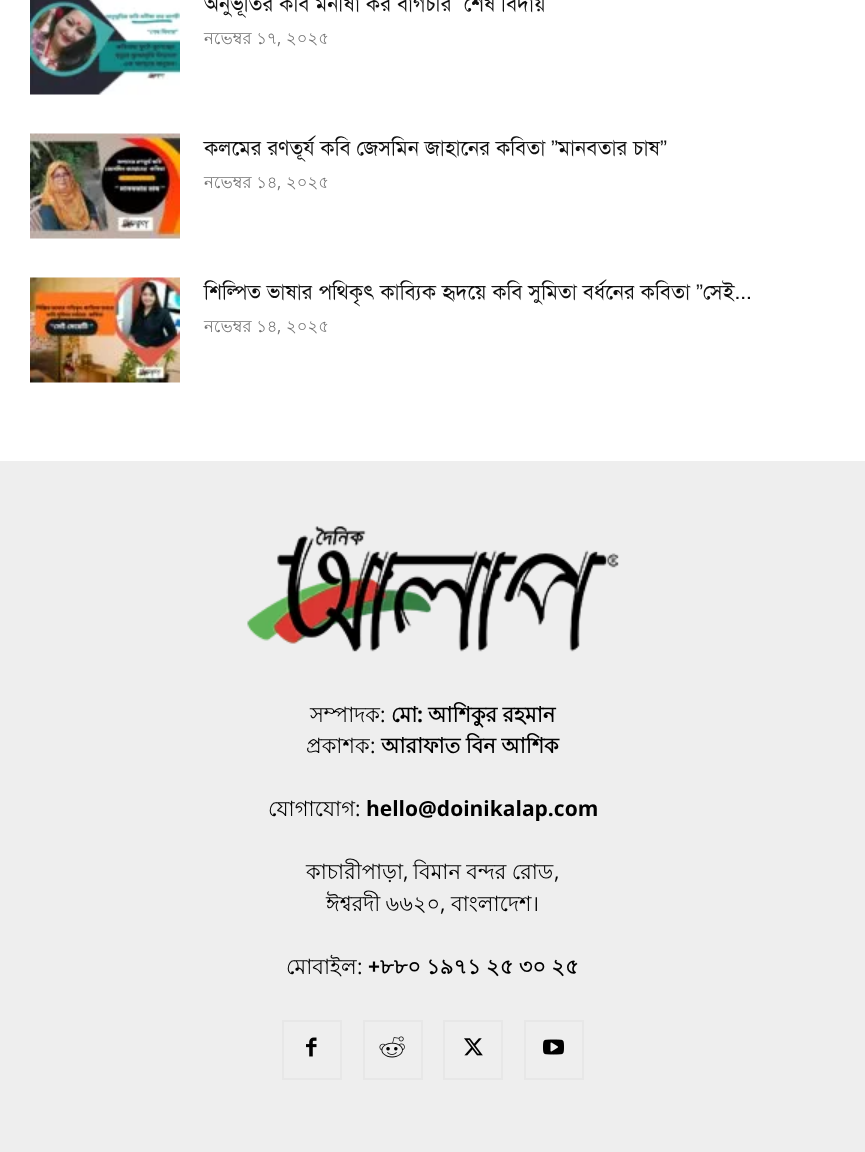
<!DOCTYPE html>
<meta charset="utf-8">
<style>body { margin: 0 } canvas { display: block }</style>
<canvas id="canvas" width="865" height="1152"></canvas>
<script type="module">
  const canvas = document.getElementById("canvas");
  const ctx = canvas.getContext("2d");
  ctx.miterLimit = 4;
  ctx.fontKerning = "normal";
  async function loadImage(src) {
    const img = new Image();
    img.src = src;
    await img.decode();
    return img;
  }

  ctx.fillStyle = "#ffffff";
  ctx.fillRect(0, 0, 865, 1152);
  ctx.drawImage(await loadImage("img1.png"), 30, 0, 150, 95);
  ctx.font = "21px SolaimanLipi";
  ctx.fillStyle = "#111111";
  ctx.fillText("অনুভূতির কবি মনীষা কর বাগচীর", 204, 11);
  ctx.fillText("শেষ বিদায়", 464, 11);
  ctx.font = "16.5px Lohit Bengali";
  ctx.fillStyle = "#767676";
  ctx.fillText("নভেম্বর ১৭", 204, 44);
  ctx.font = "16.5px Open Sans";
  ctx.fillText(",", 277, 44);
  ctx.font = "16.5px Lohit Bengali";
  ctx.fillText("২০২৫", 286, 44);
  ctx.drawImage(await loadImage("img2.png"), 30, 133, 150, 106);
  ctx.font = "21px SolaimanLipi";
  ctx.fillStyle = "#111111";
  ctx.fillText("কলমের রণতূর্য কবি জেসমিন জাহানের কবিতা", 204, 155);
  ctx.font = "21px Liberation Sans";
  ctx.fillText("”", 551, 155);
  ctx.font = "21px SolaimanLipi";
  ctx.fillText("মানবতার চাষ", 558, 155);
  ctx.font = "21px Liberation Sans";
  ctx.fillText("”", 660, 155);
  ctx.font = "16.5px Lohit Bengali";
  ctx.fillStyle = "#767676";
  ctx.fillText("নভেম্বর ১৪", 204, 188);
  ctx.font = "16.5px Open Sans";
  ctx.fillText(",", 277, 188);
  ctx.font = "16.5px Lohit Bengali";
  ctx.fillText("২০২৫", 286, 188);
  ctx.drawImage(await loadImage("img3.png"), 30, 277, 150, 106);
  ctx.font = "21px SolaimanLipi";
  ctx.fillStyle = "#111111";
  ctx.fillText("শিল্পিত ভাষার পথিকৃৎ কাব্যিক হৃদয়ে কবি সুমিতা বর্ধনের কবিতা", 204, 299);
  ctx.font = "21px Liberation Sans";
  ctx.fillText("”", 696, 299);
  ctx.font = "21px SolaimanLipi";
  ctx.fillText("সেই...", 703, 299);
  ctx.font = "16.5px Lohit Bengali";
  ctx.fillStyle = "#767676";
  ctx.fillText("নভেম্বর ১৪", 204, 332);
  ctx.font = "16.5px Open Sans";
  ctx.fillText(",", 277, 332);
  ctx.font = "16.5px Lohit Bengali";
  ctx.fillText("২০২৫", 286, 332);
  ctx.fillStyle = "#eeeeee";
  ctx.fillRect(0, 461, 865, 691);
  ctx.drawImage(await loadImage("img4.png"), 247, 526, 372, 126);
  ctx.font = "21px Lohit Bengali";
  ctx.fillStyle = "#000000";
  ctx.fillText("সম্পাদক", 310, 722);
  ctx.font = "21px Open Sans";
  ctx.fillText(":", 380, 722);
  ctx.font = "bold 21px Lohit Bengali";
  ctx.fillText("মো", 391, 722);
  ctx.font = "bold 21px Open Sans";
  ctx.fillText(":", 417, 722);
  ctx.wordSpacing = "-0.5px";
  ctx.font = "bold 21px Lohit Bengali";
  ctx.fillText("আশিকুর রহমান", 428, 722);
  ctx.wordSpacing = "0px";
  ctx.font = "21px Lohit Bengali";
  ctx.fillText("প্রকাশক", 306, 753);
  ctx.font = "21px Open Sans";
  ctx.fillText(":", 370, 753);
  ctx.wordSpacing = "-0.5px";
  ctx.font = "bold 21px Lohit Bengali";
  ctx.fillText("আরাফাত বিন আশিক", 381, 753);
  ctx.wordSpacing = "0px";
  ctx.font = "21px Lohit Bengali";
  ctx.fillText("যোগাযোগ", 268, 816);
  ctx.font = "21px Open Sans";
  ctx.fillText(":", 355, 816);
  ctx.font = "bold 21px Open Sans";
  ctx.fillText("hello@doinikalap.com", 366, 816);
  ctx.font = "21px Lohit Bengali";
  ctx.fillText("কাচারীপাড়া", 306, 879);
  ctx.font = "21px Open Sans";
  ctx.fillText(",", 403, 879);
  ctx.wordSpacing = "-0.5px";
  ctx.font = "21px Lohit Bengali";
  ctx.fillText("বিমান বন্দর রোড", 413, 879);
  ctx.wordSpacing = "0px";
  ctx.font = "21px Open Sans";
  ctx.fillText(",", 554, 879);
  ctx.wordSpacing = "-0.5px";
  ctx.font = "21px Lohit Bengali";
  ctx.fillText("ঈশ্বরদী ৬৬২০", 326, 911);
  ctx.wordSpacing = "0px";
  ctx.font = "21px Open Sans";
  ctx.fillText(",", 440, 911);
  ctx.font = "21px Lohit Bengali";
  ctx.fillText("বাংলাদেশ।", 451, 911);
  ctx.fillText("মোবাইল", 286, 974);
  ctx.font = "21px Open Sans";
  ctx.fillText(":", 357, 974);
  ctx.font = "bold 21px Open Sans";
  ctx.fillText("+", 368, 974);
  ctx.wordSpacing = "-0.5px";
  ctx.font = "bold 21px Lohit Bengali";
  ctx.fillText("৮৮০ ১৯৭১ ২৫ ৩০ ২৫", 380, 974);
  ctx.drawImage(await loadImage("img5.png"), 306, 1037, 11, 20);
  ctx.strokeStyle = "#e7e7e7";
  ctx.lineWidth = 2;
  ctx.strokeRect(283, 1021, 58, 58);
  ctx.drawImage(await loadImage("img6.png"), 379, 1036, 26, 22);
  ctx.strokeRect(364, 1021, 58, 58);
  ctx.drawImage(await loadImage("img7.png"), 464, 1038, 19, 18);
  ctx.strokeRect(444, 1021, 58, 58);
  ctx.drawImage(await loadImage("img8.png"), 543, 1039, 21, 16);
  ctx.strokeRect(525, 1021, 58, 58);
</script>
